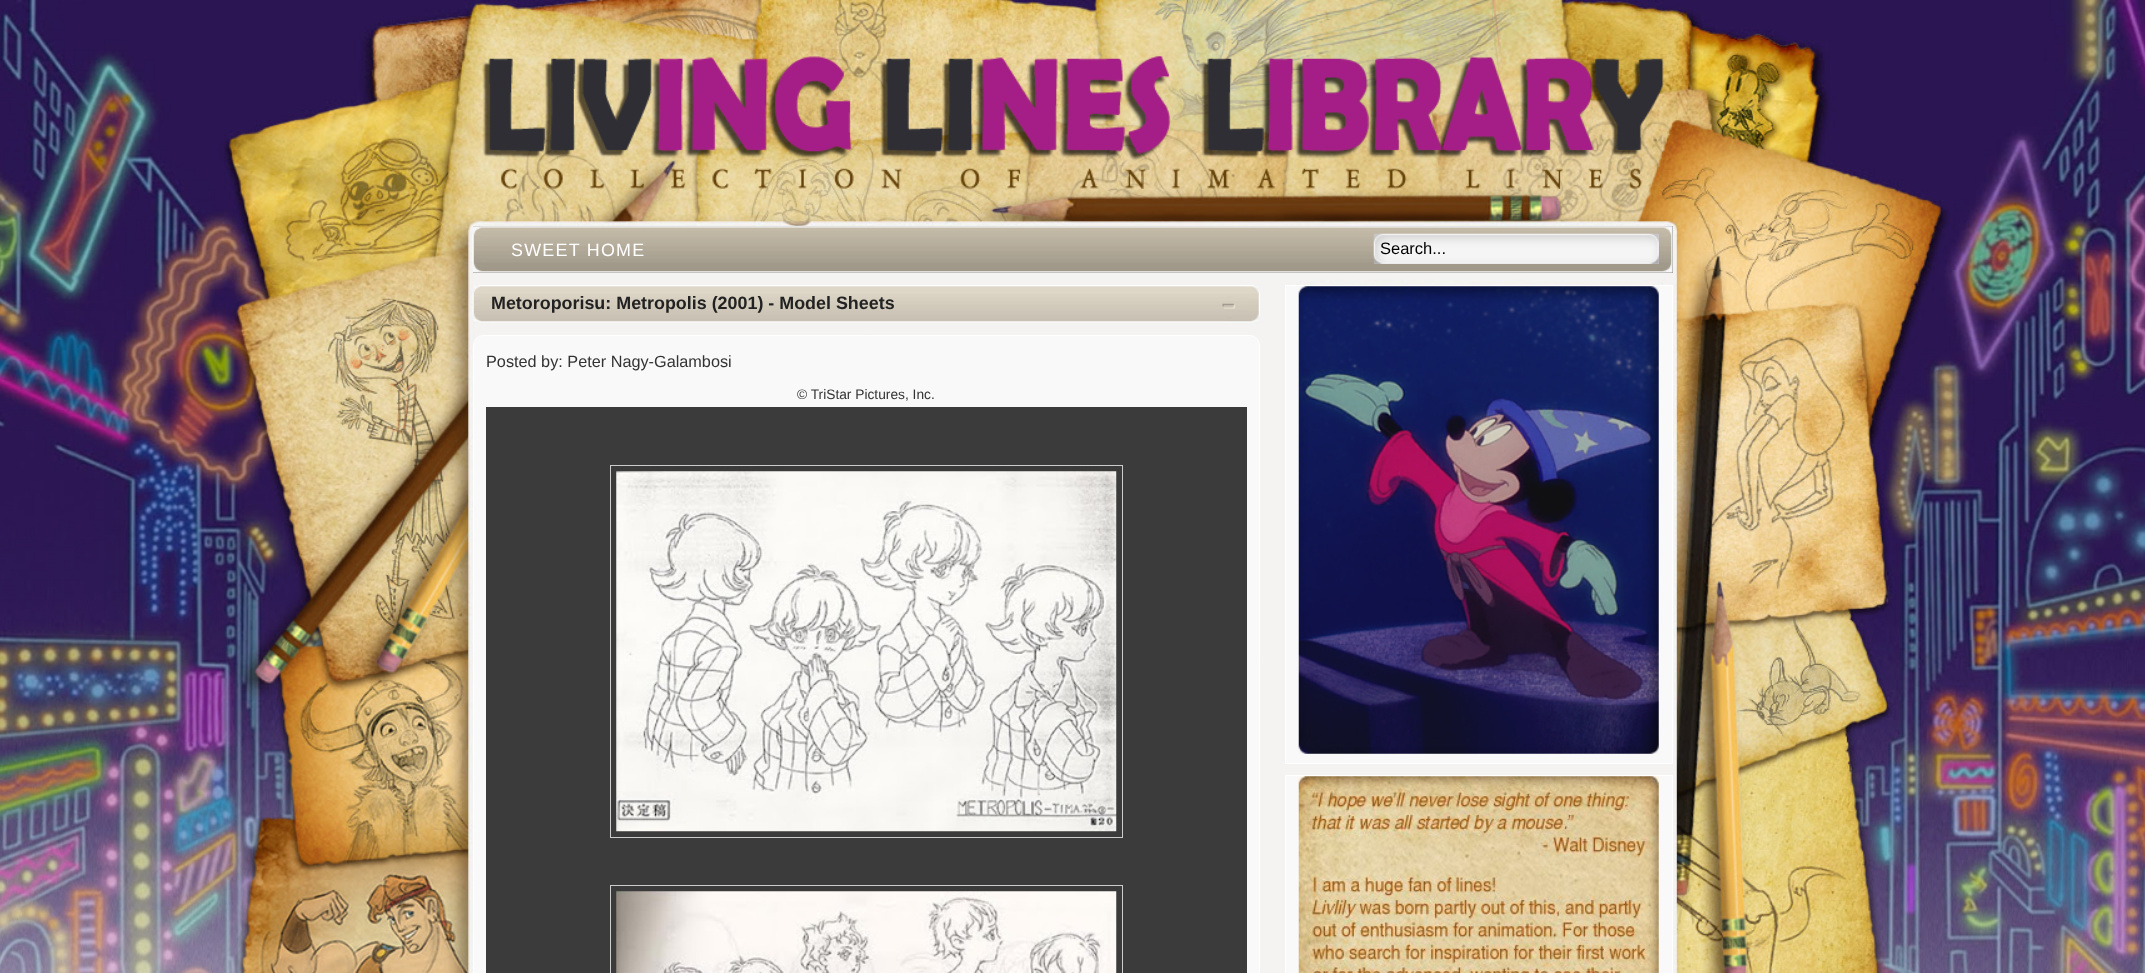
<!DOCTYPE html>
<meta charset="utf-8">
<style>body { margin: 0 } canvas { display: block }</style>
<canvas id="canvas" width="2145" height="973"></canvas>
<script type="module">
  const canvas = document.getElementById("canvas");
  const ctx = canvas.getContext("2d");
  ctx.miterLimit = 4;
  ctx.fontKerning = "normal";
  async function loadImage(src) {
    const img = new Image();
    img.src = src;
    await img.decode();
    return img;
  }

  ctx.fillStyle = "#ffffff";
  ctx.fillRect(0, 0, 2145, 973);
  ctx.drawImage(await loadImage("img1.png"), 0, 0, 2145, 973);
  ctx.drawImage(await loadImage("img2.png"), 482, 56, 1182, 133);
  ctx.fillStyle = "#888888";
  ctx.fillRect(473, 226, 1200, 47);
  ctx.drawImage(await loadImage("img3.png"), 472, 226, 1201, 47);
  ctx.letterSpacing = "1.25px";
  ctx.font = "17.9px Liberation Sans";
  ctx.fillStyle = "#ffffff";
  ctx.fillText("SWEET HOME", 511, 256);
  ctx.fillStyle = "#cccccc";
  ctx.fillRect(1374, 234, 285, 30);
  ctx.drawImage(await loadImage("img4.png"), 1373, 233, 286, 31);
  ctx.letterSpacing = "0px";
  ctx.font = "16.5px Liberation Sans";
  ctx.fillStyle = "#000000";
  ctx.fillText("Search...", 1380, 254);
  ctx.fillStyle = "#eeeeee";
  ctx.fillRect(473, 322, 787, 1);
  ctx.drawImage(await loadImage("img5.png"), 472, 285, 788, 38);
  ctx.font = "bold 17.9px Liberation Sans";
  ctx.fillStyle = "#222222";
  ctx.fillText("Metoroporisu: Metropolis (2001) - Model Sheets", 491, 309);
  ctx.fillStyle = "#f9f9f9";
  ctx.beginPath();
  ctx.roundRect(473.5, 335.5, 786, 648, 9.5);
  ctx.fill();
  ctx.strokeStyle = "#ffffff";
  ctx.stroke();
  ctx.font = "16.25px Liberation Sans";
  ctx.fillStyle = "#333333";
  ctx.fillText("Posted by: Peter Nagy-Galambosi", 486, 367);
  ctx.font = "13.75px Liberation Sans";
  ctx.fillText("© TriStar Pictures, Inc.", 797, 399);
  ctx.fillStyle = "#3b3b3b";
  ctx.fillRect(486, 407, 761, 566);
  ctx.strokeStyle = "#cccccc";
  ctx.strokeRect(610.5, 465.5, 512, 372);
  ctx.drawImage(await loadImage("img6.png"), 616, 471, 501, 361);
  ctx.strokeRect(610.5, 885.5, 512, 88);
  ctx.drawImage(await loadImage("img7.png"), 616, 891, 501, 82);
  ctx.fillStyle = "#f9f9f9";
  ctx.beginPath();
  ctx.rect(1285.5, 285.5, 387, 478);
  ctx.fill();
  ctx.strokeStyle = "#ffffff";
  ctx.stroke();
  ctx.drawImage(await loadImage("img8.png"), 1298, 286, 361, 468);
  ctx.beginPath();
  ctx.rect(1285.5, 775.5, 387, 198);
  ctx.fill();
  ctx.stroke();
  ctx.drawImage(await loadImage("img9.png"), 1298, 776, 361, 197);
</script>
